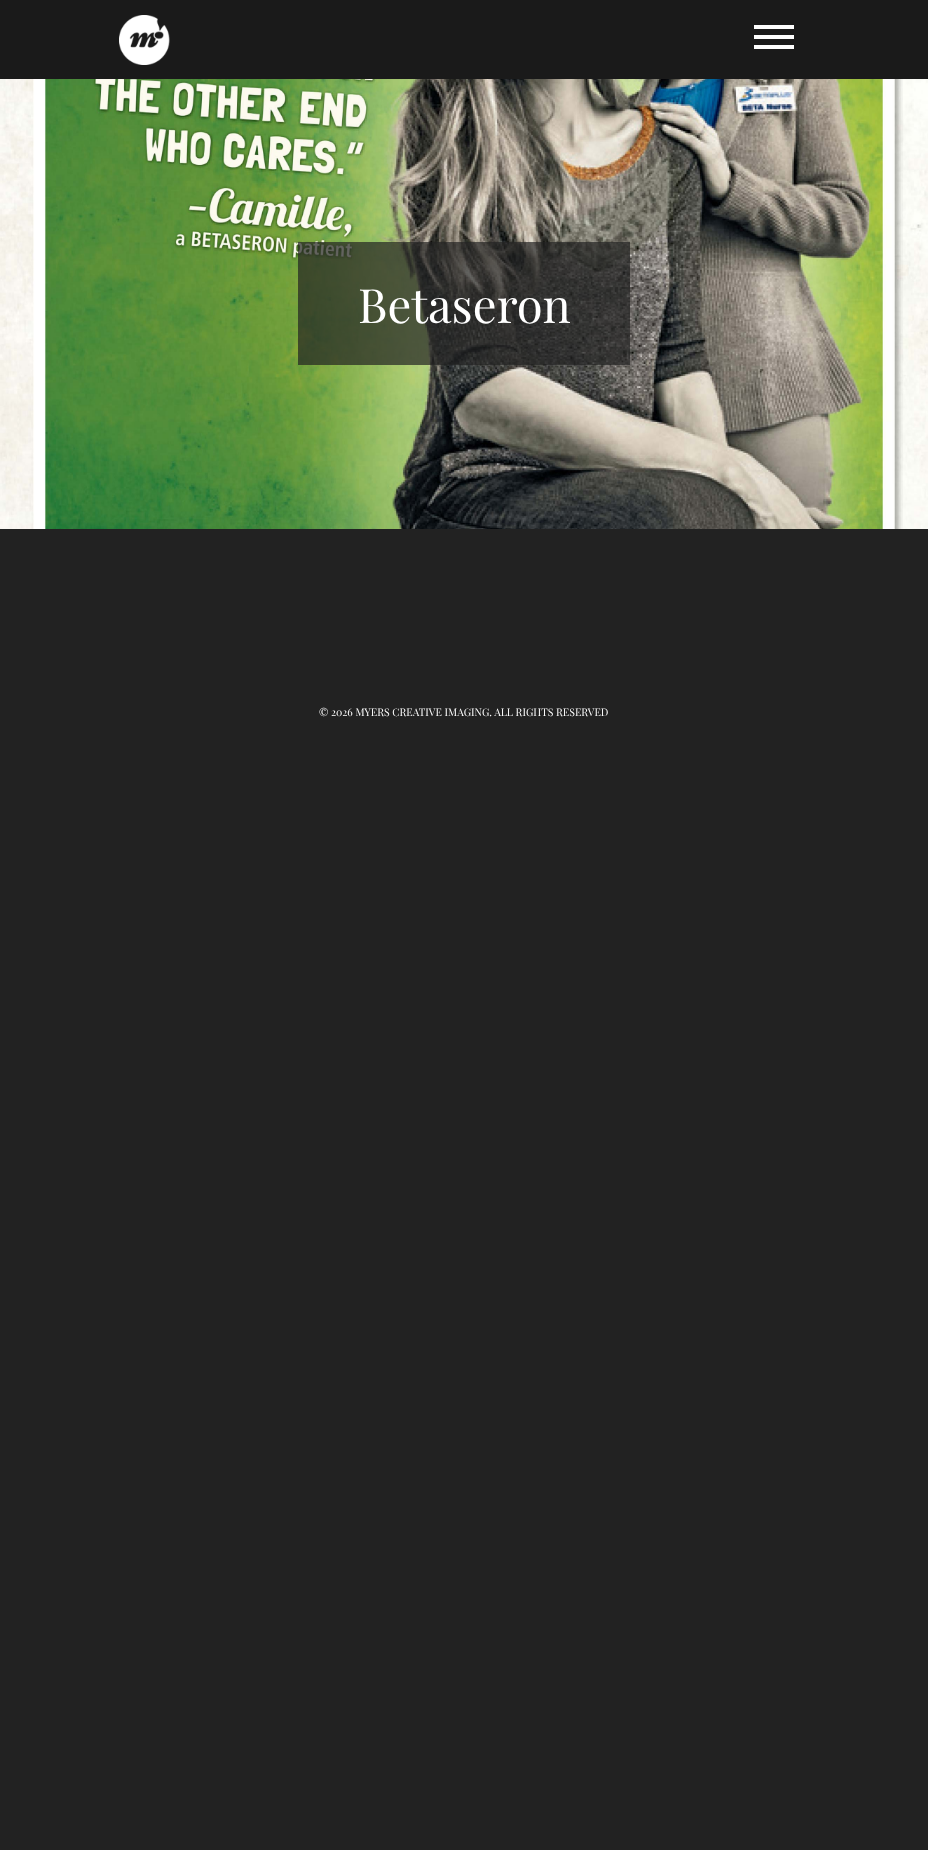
<!DOCTYPE html>
<meta charset="utf-8">
<style>body { margin: 0 } canvas { display: block }</style>
<canvas id="canvas" width="928" height="1850"></canvas>
<script type="module">
  const canvas = document.getElementById("canvas");
  const ctx = canvas.getContext("2d");
  ctx.miterLimit = 4;
  ctx.fontKerning = "normal";
  async function loadImage(src) {
    const img = new Image();
    img.src = src;
    await img.decode();
    return img;
  }

  ctx.fillStyle = "#222222";
  ctx.fillRect(0, 0, 928, 1850);
  ctx.fillStyle = "#1a1a1a";
  ctx.fillRect(0, 0, 928, 79);
  ctx.drawImage(await loadImage("img1.png"), 119, 15, 51, 50);
  ctx.fillStyle = "#ffffff";
  ctx.fillRect(754, 35, 40, 4);
  ctx.fillRect(754, 25, 40, 4);
  ctx.fillRect(754, 45, 40, 4);
  ctx.drawImage(await loadImage("img2.png"), 0, 79, 928, 450);
  ctx.fillStyle = "rgba(34, 34, 34, 0.7)";
  ctx.fillRect(298, 242, 332, 123);
  ctx.font = "47.25px Playfair Display";
  ctx.fillStyle = "#ffffff";
  ctx.fillText("Betaseron", 358, 323);
  ctx.font = "10.5px Playfair Display";
  ctx.fillText("© 2026 MYERS CREATIVE IMAGING. ALL RIGHTS RESERVED", 319, 716);
</script>
